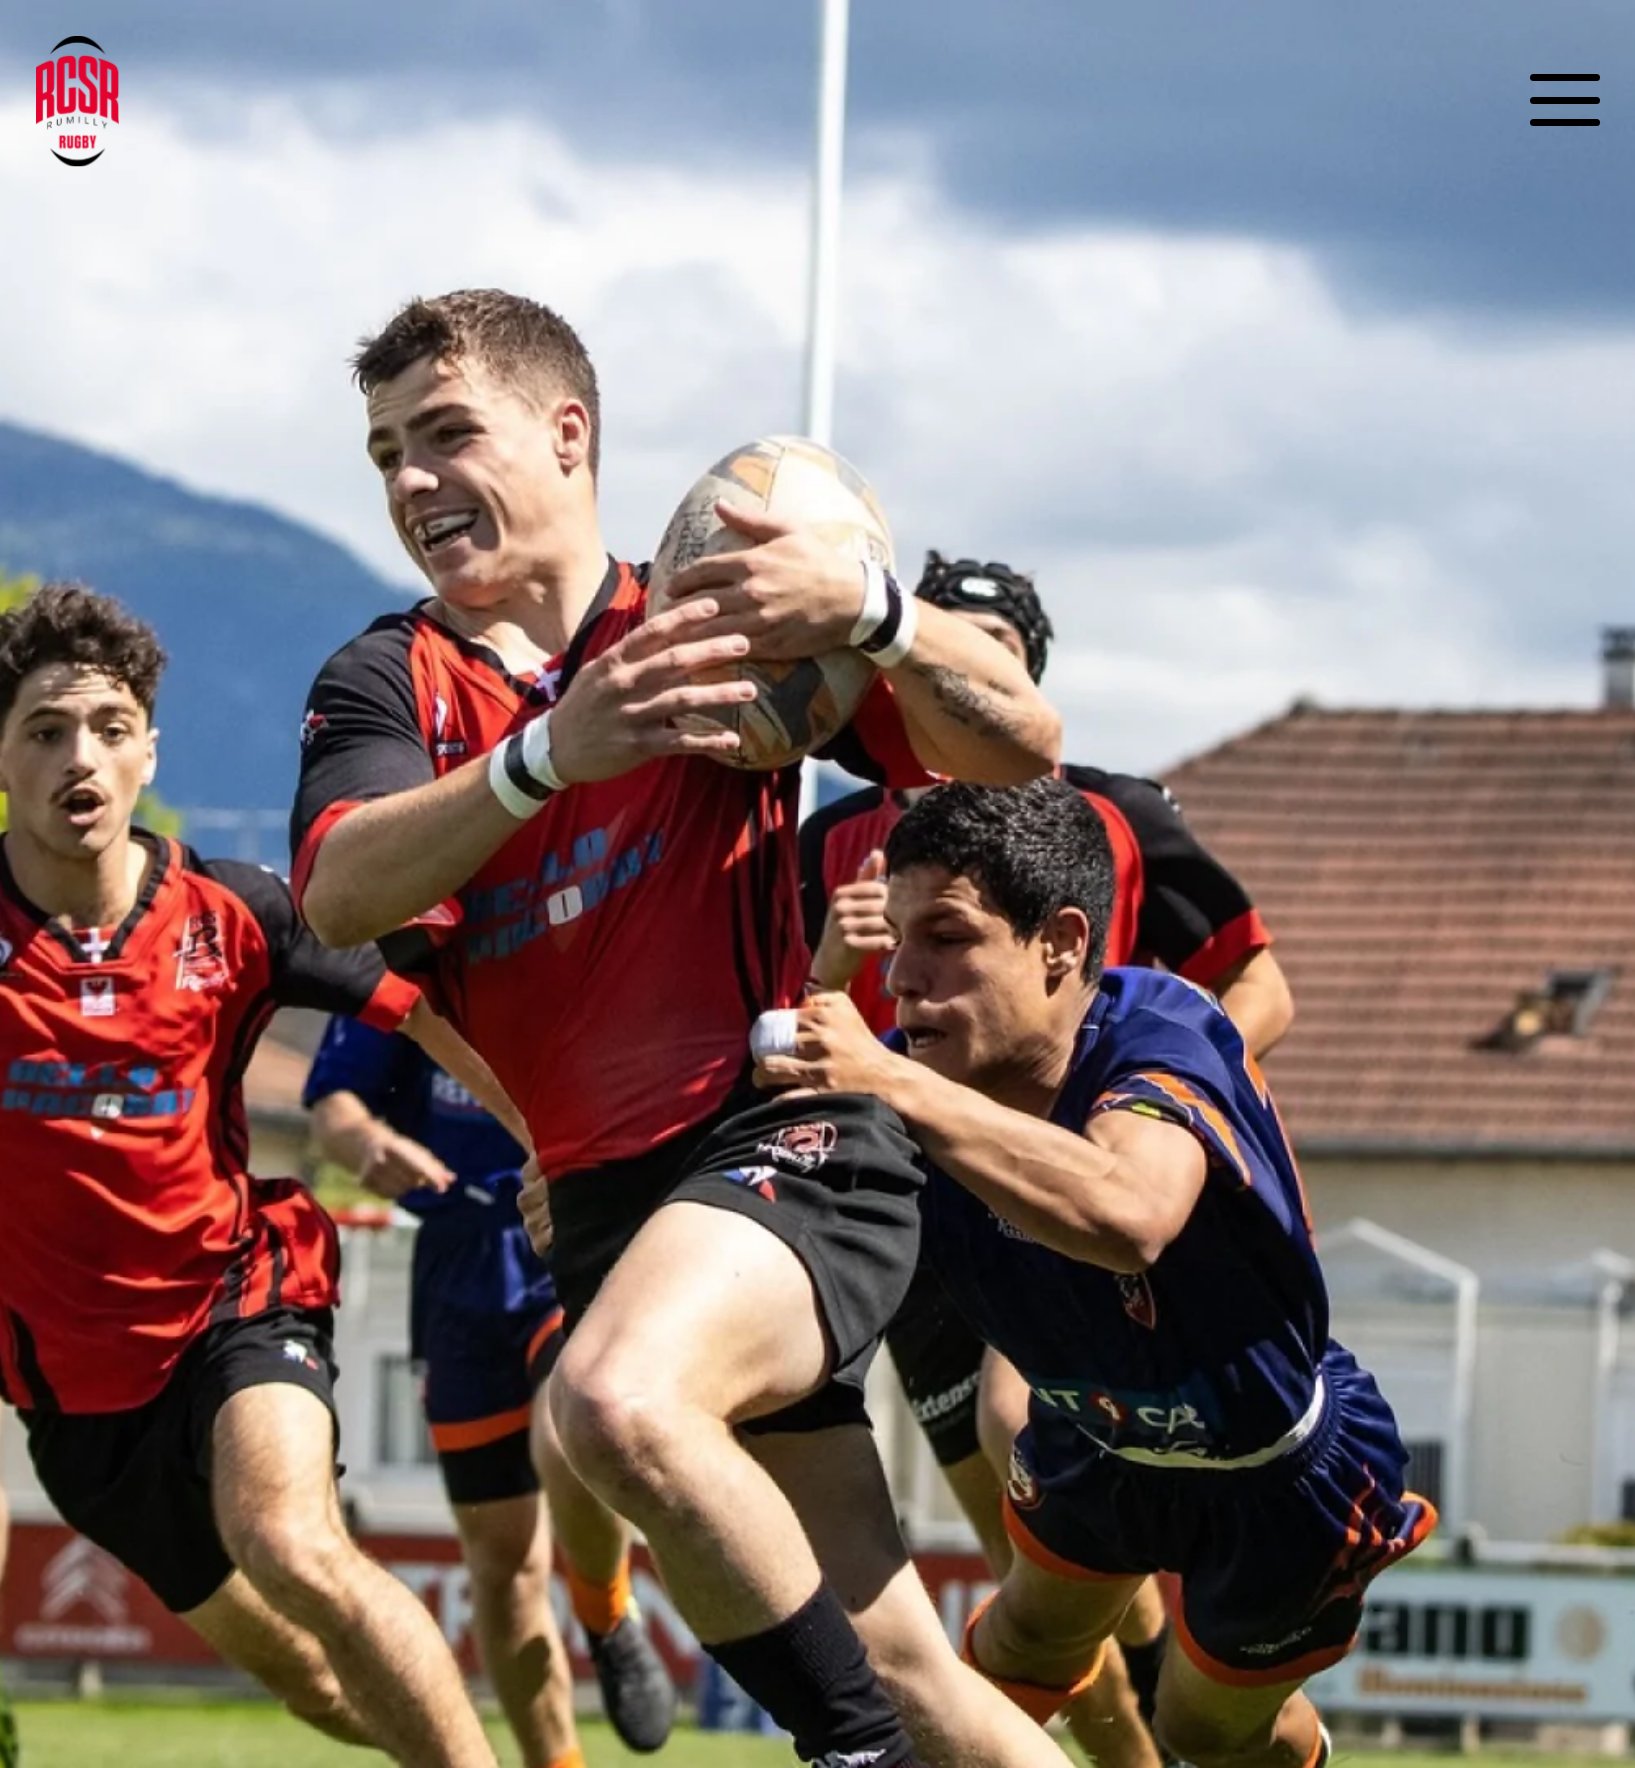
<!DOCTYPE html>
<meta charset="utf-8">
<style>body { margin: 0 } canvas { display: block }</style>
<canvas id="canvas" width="1635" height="1768"></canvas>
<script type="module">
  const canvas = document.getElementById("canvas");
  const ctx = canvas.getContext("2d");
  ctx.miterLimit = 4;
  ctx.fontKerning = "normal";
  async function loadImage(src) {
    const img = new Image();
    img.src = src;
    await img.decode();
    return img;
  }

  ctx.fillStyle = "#ffffff";
  ctx.fillRect(0, 0, 1635, 1768);
  ctx.drawImage(await loadImage("img1.png"), 0, 0, 1635, 1768);
  ctx.drawImage(await loadImage("img2.png"), 36, 36, 83, 131);
  ctx.fillStyle = "#000000";
  ctx.beginPath();
  ctx.roundRect(1530, 74, 70, 7, 3.5);
  ctx.fill();
  ctx.beginPath();
  ctx.roundRect(1530, 97, 70, 7, 3.5);
  ctx.fill();
  ctx.beginPath();
  ctx.roundRect(1530, 119, 70, 7, 3.5);
  ctx.fill();
</script>
